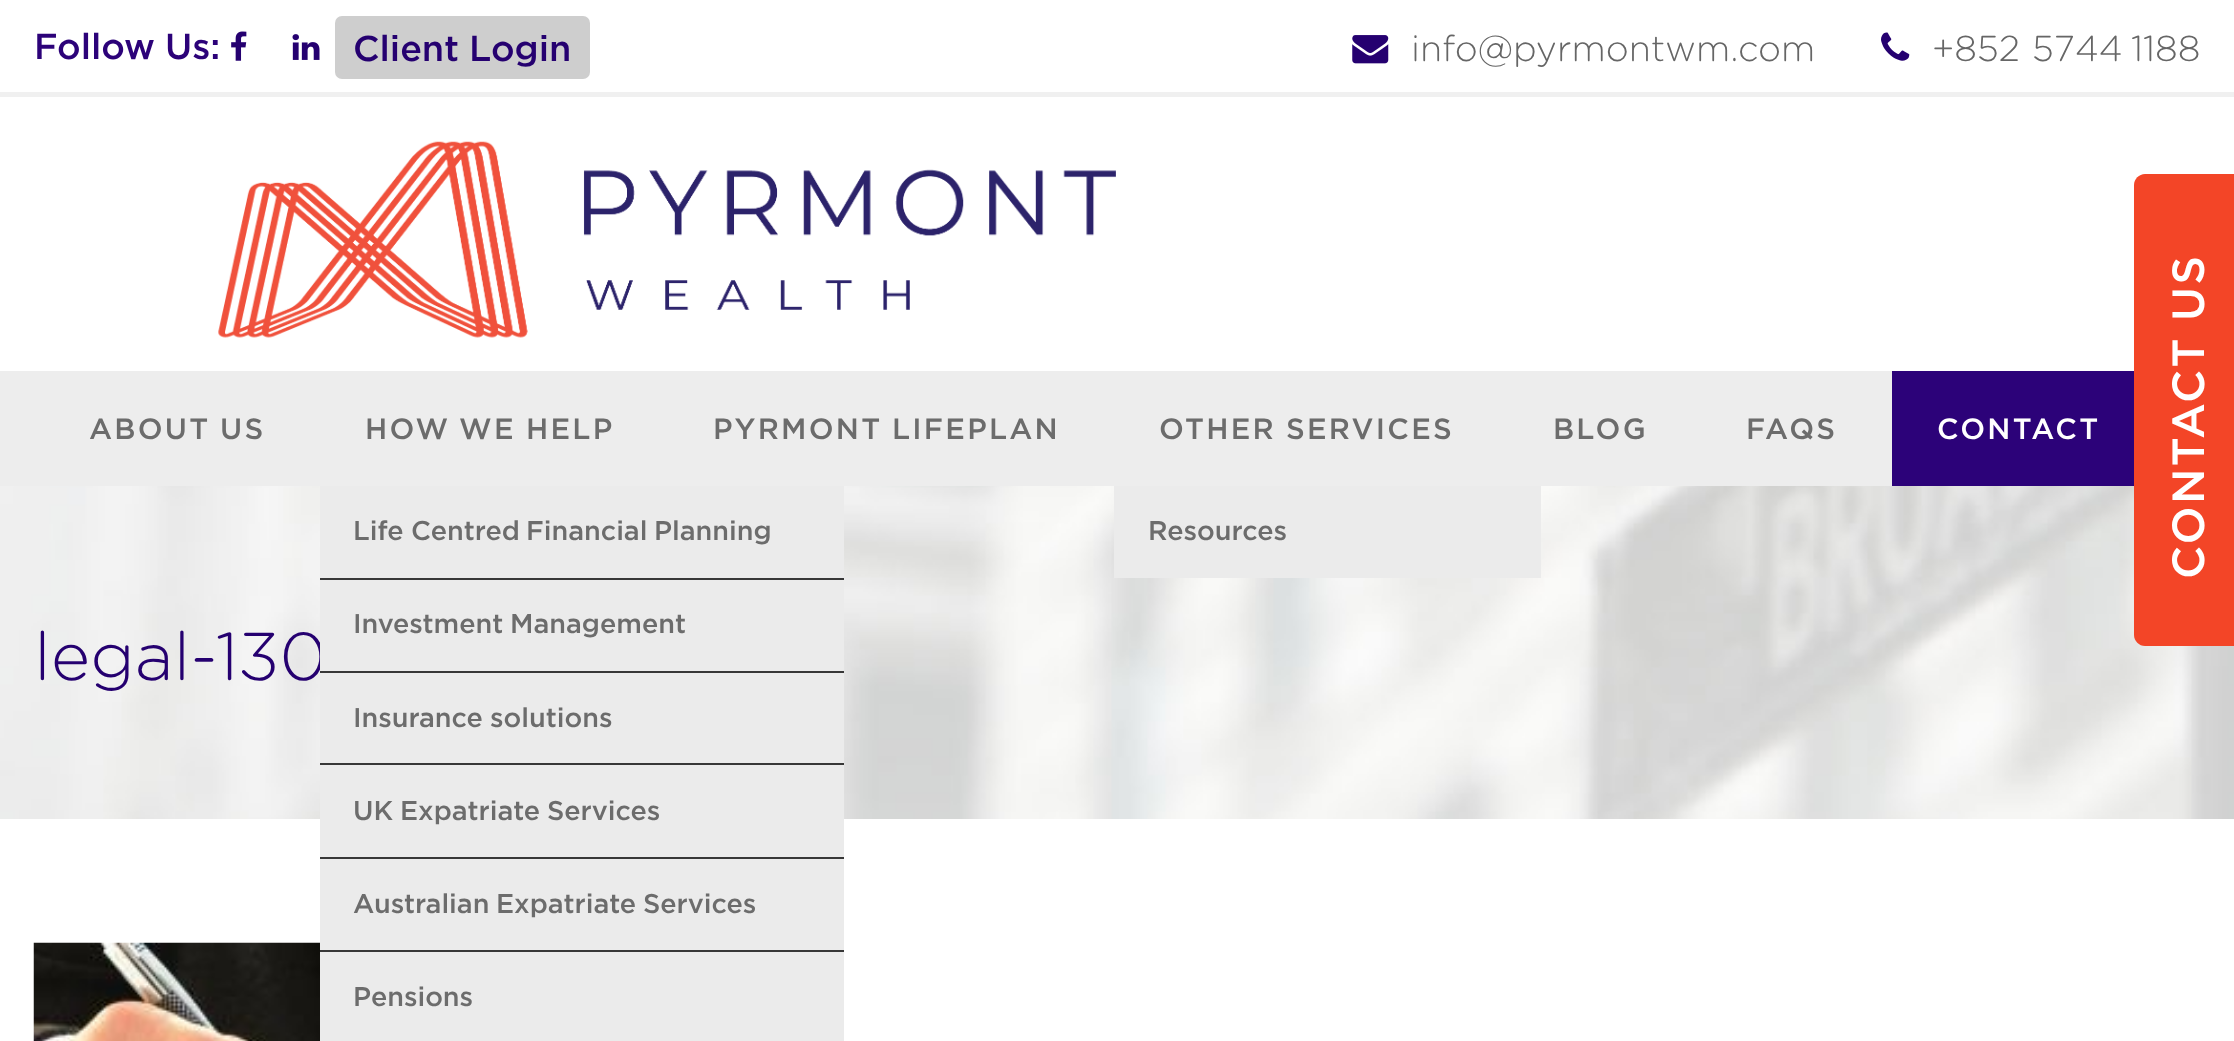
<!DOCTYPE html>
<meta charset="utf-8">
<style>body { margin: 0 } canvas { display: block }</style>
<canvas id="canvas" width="2234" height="1041"></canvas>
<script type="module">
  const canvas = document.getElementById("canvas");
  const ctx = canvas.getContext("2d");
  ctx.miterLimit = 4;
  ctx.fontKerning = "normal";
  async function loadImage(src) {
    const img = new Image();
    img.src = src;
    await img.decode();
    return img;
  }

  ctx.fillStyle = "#ffffff";
  ctx.fillRect(0, 0, 2234, 1041);
  ctx.fillStyle = "#f0f0f0";
  ctx.fillRect(0, 92, 2234, 5);
  ctx.font = "500 36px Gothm";
  ctx.fillStyle = "#2c0279";
  ctx.fillText("Follow", 34, 59);
  ctx.fillText("Us:", 165, 59);
  ctx.drawImage(await loadImage("img1.png"), 231, 31, 16, 30);
  ctx.drawImage(await loadImage("img2.png"), 292, 34, 28, 26);
  ctx.fillStyle = "#cecece";
  ctx.beginPath();
  ctx.roundRect(335, 16, 255, 63, 7);
  ctx.fill();
  ctx.fillStyle = "#250070";
  ctx.fillText("Client", 353, 61);
  ctx.fillText("Login", 469, 61);
  ctx.drawImage(await loadImage("img3.png"), 1352, 35, 37, 29);
  ctx.font = "300 36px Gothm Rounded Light";
  ctx.fillStyle = "#666666";
  ctx.fillText("info@pyrmontwm.com", 1411, 61);
  ctx.drawImage(await loadImage("img4.png"), 1881, 32, 29, 29);
  ctx.fillText("+852", 1932, 61);
  ctx.fillText("5744", 2032, 61);
  ctx.fillText("1188", 2131, 61);
  ctx.drawImage(await loadImage("img5.png"), 218, 141, 898, 197);
  ctx.fillStyle = "#ededed";
  ctx.fillRect(0, 371, 1892, 115);
  ctx.letterSpacing = "2.25px";
  ctx.font = "500 29.25px Gothm";
  ctx.fillStyle = "#6c6c6c";
  ctx.fillText("ABOUT", 89, 439);
  ctx.fillText("US", 220, 439);
  ctx.fillText("HOW", 365, 439);
  ctx.fillText("WE", 459, 439);
  ctx.fillText("HELP", 526, 439);
  ctx.drawImage(await loadImage("img6.png"), 0, 486, 2234, 333);
  ctx.fillStyle = "#ebebeb";
  ctx.fillRect(320, 486, 524, 92);
  ctx.letterSpacing = "0px";
  ctx.font = "500 27px Gothm";
  ctx.fillStyle = "#6c6c6c";
  ctx.fillText("Life", 353, 540);
  ctx.fillText("Centred", 411, 540);
  ctx.fillText("Financial", 526, 540);
  ctx.fillText("Planning", 654, 540);
  ctx.font = "300 67.5px Gothm Rounded Light";
  ctx.fillStyle = "#250070";
  ctx.fillText("legal-130", 34, 680);
  ctx.fillStyle = "#ebebeb";
  ctx.fillRect(320, 580, 524, 91);
  ctx.fillStyle = "#373737";
  ctx.fillRect(320, 578, 524, 2);
  ctx.font = "500 27px Gothm";
  ctx.fillStyle = "#6c6c6c";
  ctx.fillText("Investment", 353, 633);
  ctx.fillText("Management", 510, 633);
  ctx.fillStyle = "#ebebeb";
  ctx.fillRect(320, 673, 524, 90);
  ctx.fillStyle = "#373737";
  ctx.fillRect(320, 671, 524, 2);
  ctx.fillStyle = "#6c6c6c";
  ctx.fillText("Insurance", 353, 727);
  ctx.fillText("solutions", 490, 727);
  ctx.fillStyle = "#ebebeb";
  ctx.fillRect(320, 765, 524, 92);
  ctx.fillStyle = "#373737";
  ctx.fillRect(320, 763, 524, 2);
  ctx.fillStyle = "#6c6c6c";
  ctx.fillText("UK", 353, 820);
  ctx.fillText("Expatriate", 400, 820);
  ctx.fillText("Services", 547, 820);
  ctx.fillStyle = "#ebebeb";
  ctx.fillRect(320, 859, 524, 91);
  ctx.fillStyle = "#373737";
  ctx.fillRect(320, 857, 524, 2);
  ctx.fillStyle = "#6c6c6c";
  ctx.fillText("Australian", 353, 913);
  ctx.fillText("Expatriate", 496, 913);
  ctx.fillText("Services", 643, 913);
  ctx.fillStyle = "#ebebeb";
  ctx.fillRect(320, 952, 524, 89);
  ctx.fillStyle = "#373737";
  ctx.fillRect(320, 950, 524, 2);
  ctx.fillStyle = "#6c6c6c";
  ctx.fillText("Pensions", 353, 1006);
  ctx.letterSpacing = "2.25px";
  ctx.font = "500 29.25px Gothm";
  ctx.fillText("PYRMONT", 713, 439);
  ctx.fillText("LIFEPLAN", 892, 439);
  ctx.fillText("OTHER", 1159, 439);
  ctx.fillText("SERVICES", 1286, 439);
  ctx.fillStyle = "#ebebeb";
  ctx.fillRect(1114, 486, 427, 92);
  ctx.letterSpacing = "0px";
  ctx.font = "500 27px Gothm";
  ctx.fillStyle = "#6c6c6c";
  ctx.fillText("Resources", 1148, 540);
  ctx.letterSpacing = "2.25px";
  ctx.font = "500 29.25px Gothm";
  ctx.fillText("BLOG", 1553, 439);
  ctx.fillText("FAQS", 1746, 439);
  ctx.fillStyle = "#2c0279";
  ctx.fillRect(1892, 371, 242, 115);
  ctx.fillStyle = "#ffffff";
  ctx.fillText("CONTACT", 1937, 439);
  ctx.drawImage(await loadImage("img7.png"), 33, 942, 287, 99);
  ctx.fillStyle = "#f34527";
  ctx.beginPath();
  ctx.moveTo(2134, 635);
  ctx.lineTo(2134, 185);
  ctx.bezierCurveTo(2134, 179, 2139, 174, 2145, 174);
  ctx.lineTo(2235, 174);
  ctx.lineTo(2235, 646);
  ctx.lineTo(2145, 646);
  ctx.bezierCurveTo(2139, 646, 2134, 641, 2134, 635);
  ctx.closePath();
  ctx.fill();
  ctx.font = "500 45px Gothm";
  ctx.fillStyle = "#ffffff";
  ctx.save();
  ctx.translate(2204, 321);
  ctx.rotate(-90 * Math.PI / 180);
  ctx.fillText("US", 0, 0);
  ctx.restore();
  ctx.save();
  ctx.translate(2204, 579);
  ctx.rotate(-90 * Math.PI / 180);
  ctx.fillText("CONTACT", 0, 0);
  ctx.restore();
</script>
